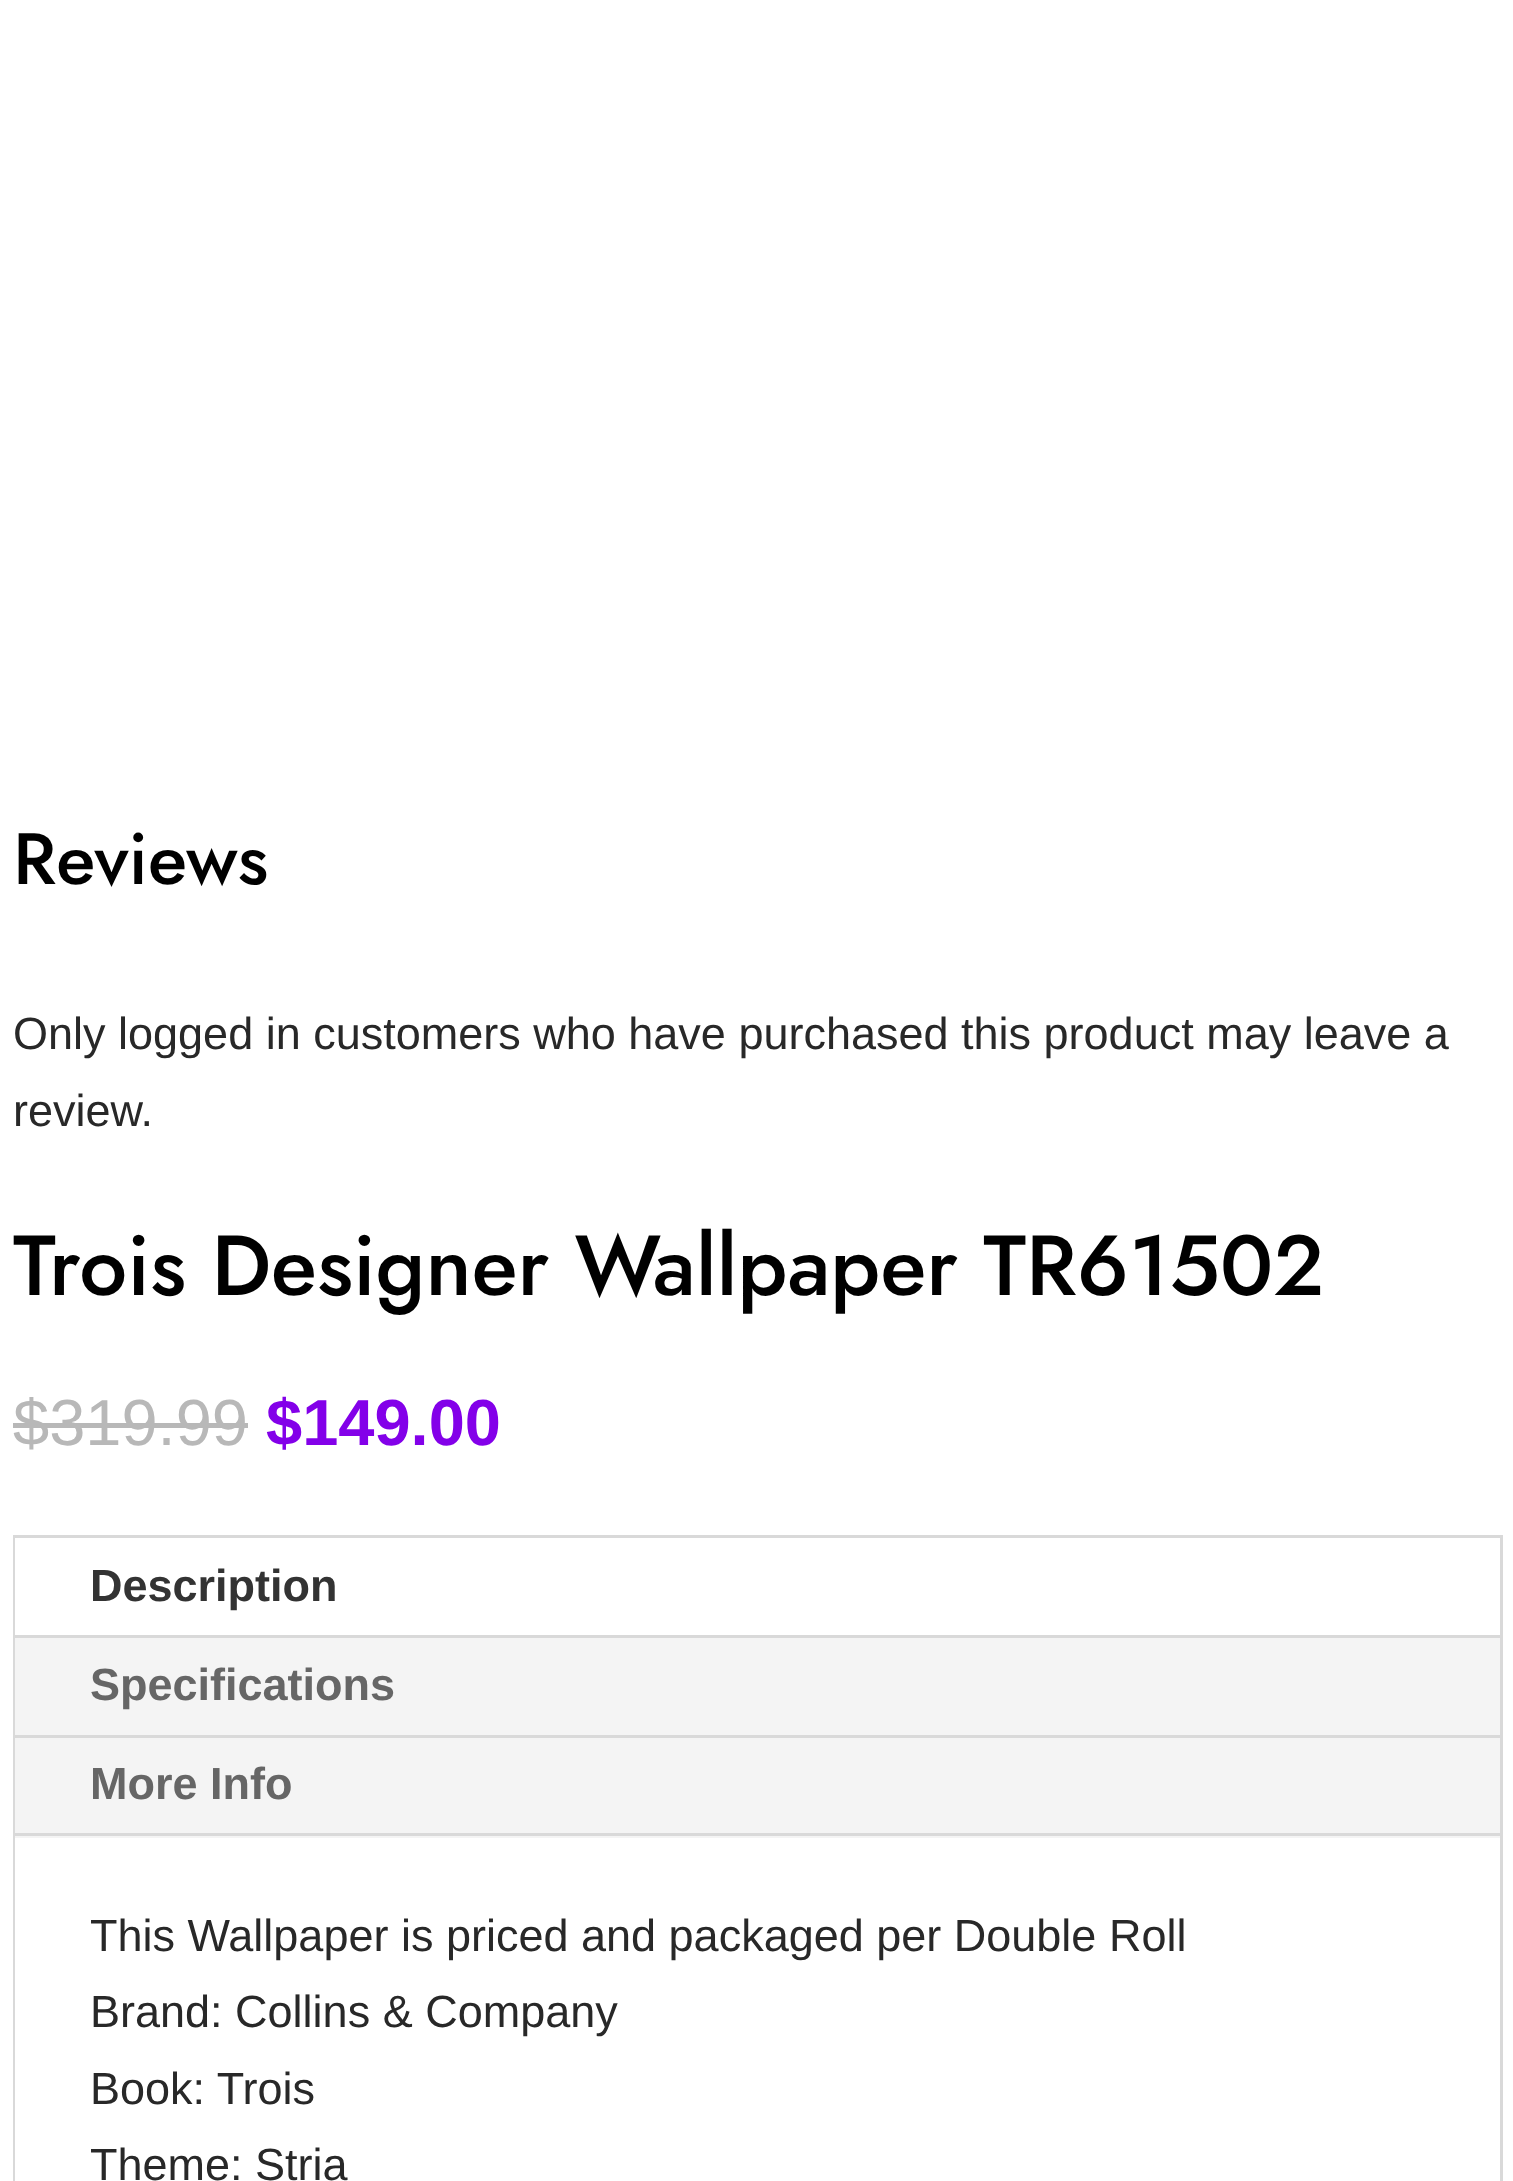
<!DOCTYPE html>
<meta charset="utf-8">
<style>body { margin: 0 } canvas { display: block }</style>
<canvas id="canvas" width="1513" height="2181"></canvas>
<script type="module">
  const canvas = document.getElementById("canvas");
  const ctx = canvas.getContext("2d");
  ctx.miterLimit = 4;
  ctx.fontKerning = "normal";

  ctx.fillStyle = "#ffffff";
  ctx.fillRect(0, 0, 1513, 2181);
  ctx.font = "500 72.5px Jost";
  ctx.fillStyle = "#000000";
  ctx.fillText("Reviews", 13, 884);
  ctx.font = "45px Liberation Sans";
  ctx.fillStyle = "#282828";
  ctx.fillText("Only logged in customers who have purchased this product may leave a", 13, 1049);
  ctx.fillText("review.", 13, 1126);
  ctx.font = "500 85px Jost";
  ctx.fillStyle = "#000000";
  ctx.fillText("Trois Designer Wallpaper TR61502", 13, 1295);
  ctx.font = "65px Liberation Sans";
  ctx.fillStyle = "#b8b8b8";
  ctx.fillText("$319.99", 13, 1445);
  ctx.fillRect(13, 1423, 235, 5);
  ctx.font = "bold 65px Liberation Sans";
  ctx.fillStyle = "#8300e9";
  ctx.fillText("$149.00", 266, 1445);
  ctx.strokeStyle = "#d9d9d9";
  ctx.lineWidth = 3;
  ctx.strokeRect(14.5, 1536.5, 1487, 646);
  ctx.fillStyle = "#f4f4f4";
  ctx.fillRect(15, 1638, 1485, 200);
  ctx.fillStyle = "#ffffff";
  ctx.fillRect(15, 1538, 1, 97);
  ctx.fillStyle = "#d9d9d9";
  ctx.fillRect(15, 1635, 1485, 3);
  ctx.font = "bold 45px Liberation Sans";
  ctx.fillStyle = "#333333";
  ctx.fillText("Description", 90, 1601);
  ctx.fillStyle = "#d9d9d9";
  ctx.fillRect(15, 1735, 1485, 3);
  ctx.fillStyle = "#666666";
  ctx.fillText("Specifications", 90, 1700);
  ctx.fillText("More Info", 90, 1799);
  ctx.fillStyle = "#d9d9d9";
  ctx.fillRect(15, 1833, 1485, 3);
  ctx.fillStyle = "#ffffff";
  ctx.fillRect(15, 1838, 1, 343);
  ctx.font = "45px Liberation Sans";
  ctx.fillStyle = "#282828";
  ctx.fillText("This Wallpaper is priced and packaged per Double Roll", 90, 1951);
  ctx.fillText("Brand: Collins & Company", 90, 2027);
  ctx.fillText("Book: Trois", 90, 2104);
  ctx.fillText("Theme: Stria", 90, 2180);
</script>
